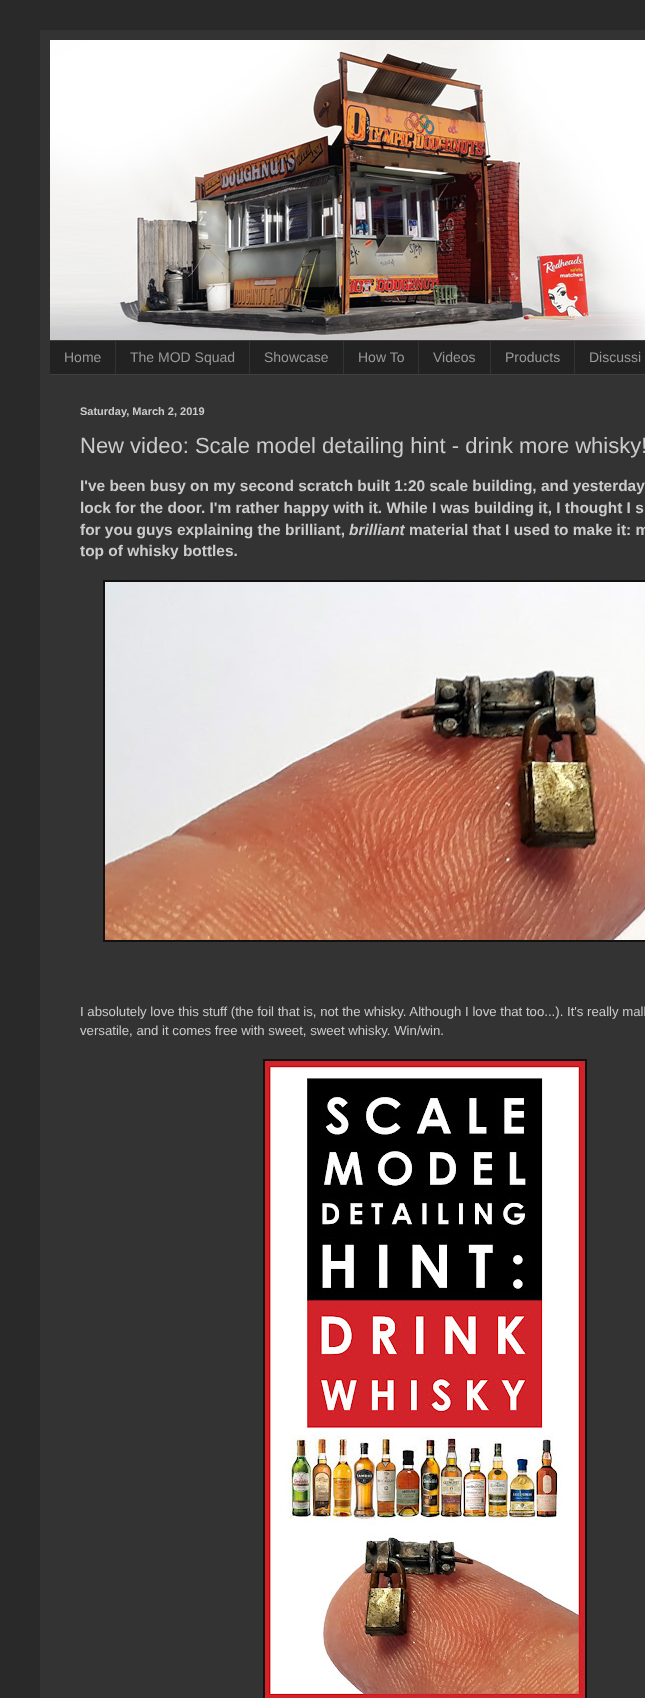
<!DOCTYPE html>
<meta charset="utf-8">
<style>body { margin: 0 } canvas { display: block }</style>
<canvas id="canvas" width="645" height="1698"></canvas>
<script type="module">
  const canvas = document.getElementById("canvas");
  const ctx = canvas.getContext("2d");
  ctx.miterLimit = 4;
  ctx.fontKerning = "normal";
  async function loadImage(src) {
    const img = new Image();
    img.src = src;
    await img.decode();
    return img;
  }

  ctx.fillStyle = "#292929";
  ctx.fillRect(0, 0, 645, 1698);
  ctx.fillStyle = "#333333";
  ctx.fillRect(40, 30, 605, 1668);
  ctx.drawImage(await loadImage("img1.png"), 50, 40, 595, 300);
  ctx.fillStyle = "#222222";
  ctx.fillRect(50, 341, 595, 33);
  ctx.fillStyle = "#404040";
  ctx.fillRect(50, 340, 595, 1);
  ctx.fillRect(50, 374, 595, 1);
  ctx.font = "14px Liberation Sans";
  ctx.fillStyle = "#999999";
  ctx.fillText("Home", 64, 362);
  ctx.fillStyle = "#333333";
  ctx.fillRect(115, 341, 1, 33);
  ctx.fillStyle = "#999999";
  ctx.fillText("The MOD Squad", 130, 362);
  ctx.fillStyle = "#333333";
  ctx.fillRect(249, 341, 1, 33);
  ctx.fillStyle = "#999999";
  ctx.fillText("Showcase", 264, 362);
  ctx.fillStyle = "#333333";
  ctx.fillRect(343, 341, 1, 33);
  ctx.fillStyle = "#999999";
  ctx.fillText("How To", 358, 362);
  ctx.fillStyle = "#333333";
  ctx.fillRect(418, 341, 1, 33);
  ctx.fillStyle = "#999999";
  ctx.fillText("Videos", 433, 362);
  ctx.fillStyle = "#333333";
  ctx.fillRect(490, 341, 1, 33);
  ctx.fillStyle = "#999999";
  ctx.fillText("Products", 505, 362);
  ctx.fillStyle = "#333333";
  ctx.fillRect(574, 341, 1, 33);
  ctx.fillStyle = "#999999";
  ctx.fillText("Discussi", 589, 362);
  ctx.font = "bold 11px Liberation Sans";
  ctx.fillStyle = "#cccccc";
  ctx.fillText("Saturday, March 2, 2019", 80, 415);
  ctx.font = "22px Liberation Sans";
  ctx.fillText("New video: Scale model detailing hint - drink more whisky!", 80, 453);
  ctx.font = "bold 15.45px Liberation Sans";
  ctx.fillText("I've been busy on my second scratch built 1:20 scale building, and yesterday", 80, 491);
  ctx.fillText("lock for the door. I'm rather happy with it. While I was building it, I thought I s", 80, 513);
  ctx.fillText("for you guys explaining the brilliant,", 80, 535);
  ctx.font = "italic bold 15.45px Liberation Sans";
  ctx.fillText("brilliant", 349, 535);
  ctx.font = "bold 15.45px Liberation Sans";
  ctx.fillText("material that I used to make it: m", 409, 535);
  ctx.fillText("top of whisky bottles.", 80, 556);
  ctx.fillStyle = "#111111";
  ctx.fillRect(103, 580, 542, 362);
  ctx.drawImage(await loadImage("img2.png"), 105, 582, 540, 358);
  ctx.font = "13.2px Liberation Sans";
  ctx.fillStyle = "#cccccc";
  ctx.fillText("I absolutely love this stuff (the foil that is, not the whisky. Although I love that too...). It's really mall", 80, 1016);
  ctx.fillText("versatile, and it comes free with sweet, sweet whisky. Win/win.", 80, 1035);
  ctx.fillStyle = "#111111";
  ctx.fillRect(263, 1059, 324, 639);
  ctx.drawImage(await loadImage("img3.png"), 265, 1061, 320, 637);
</script>
